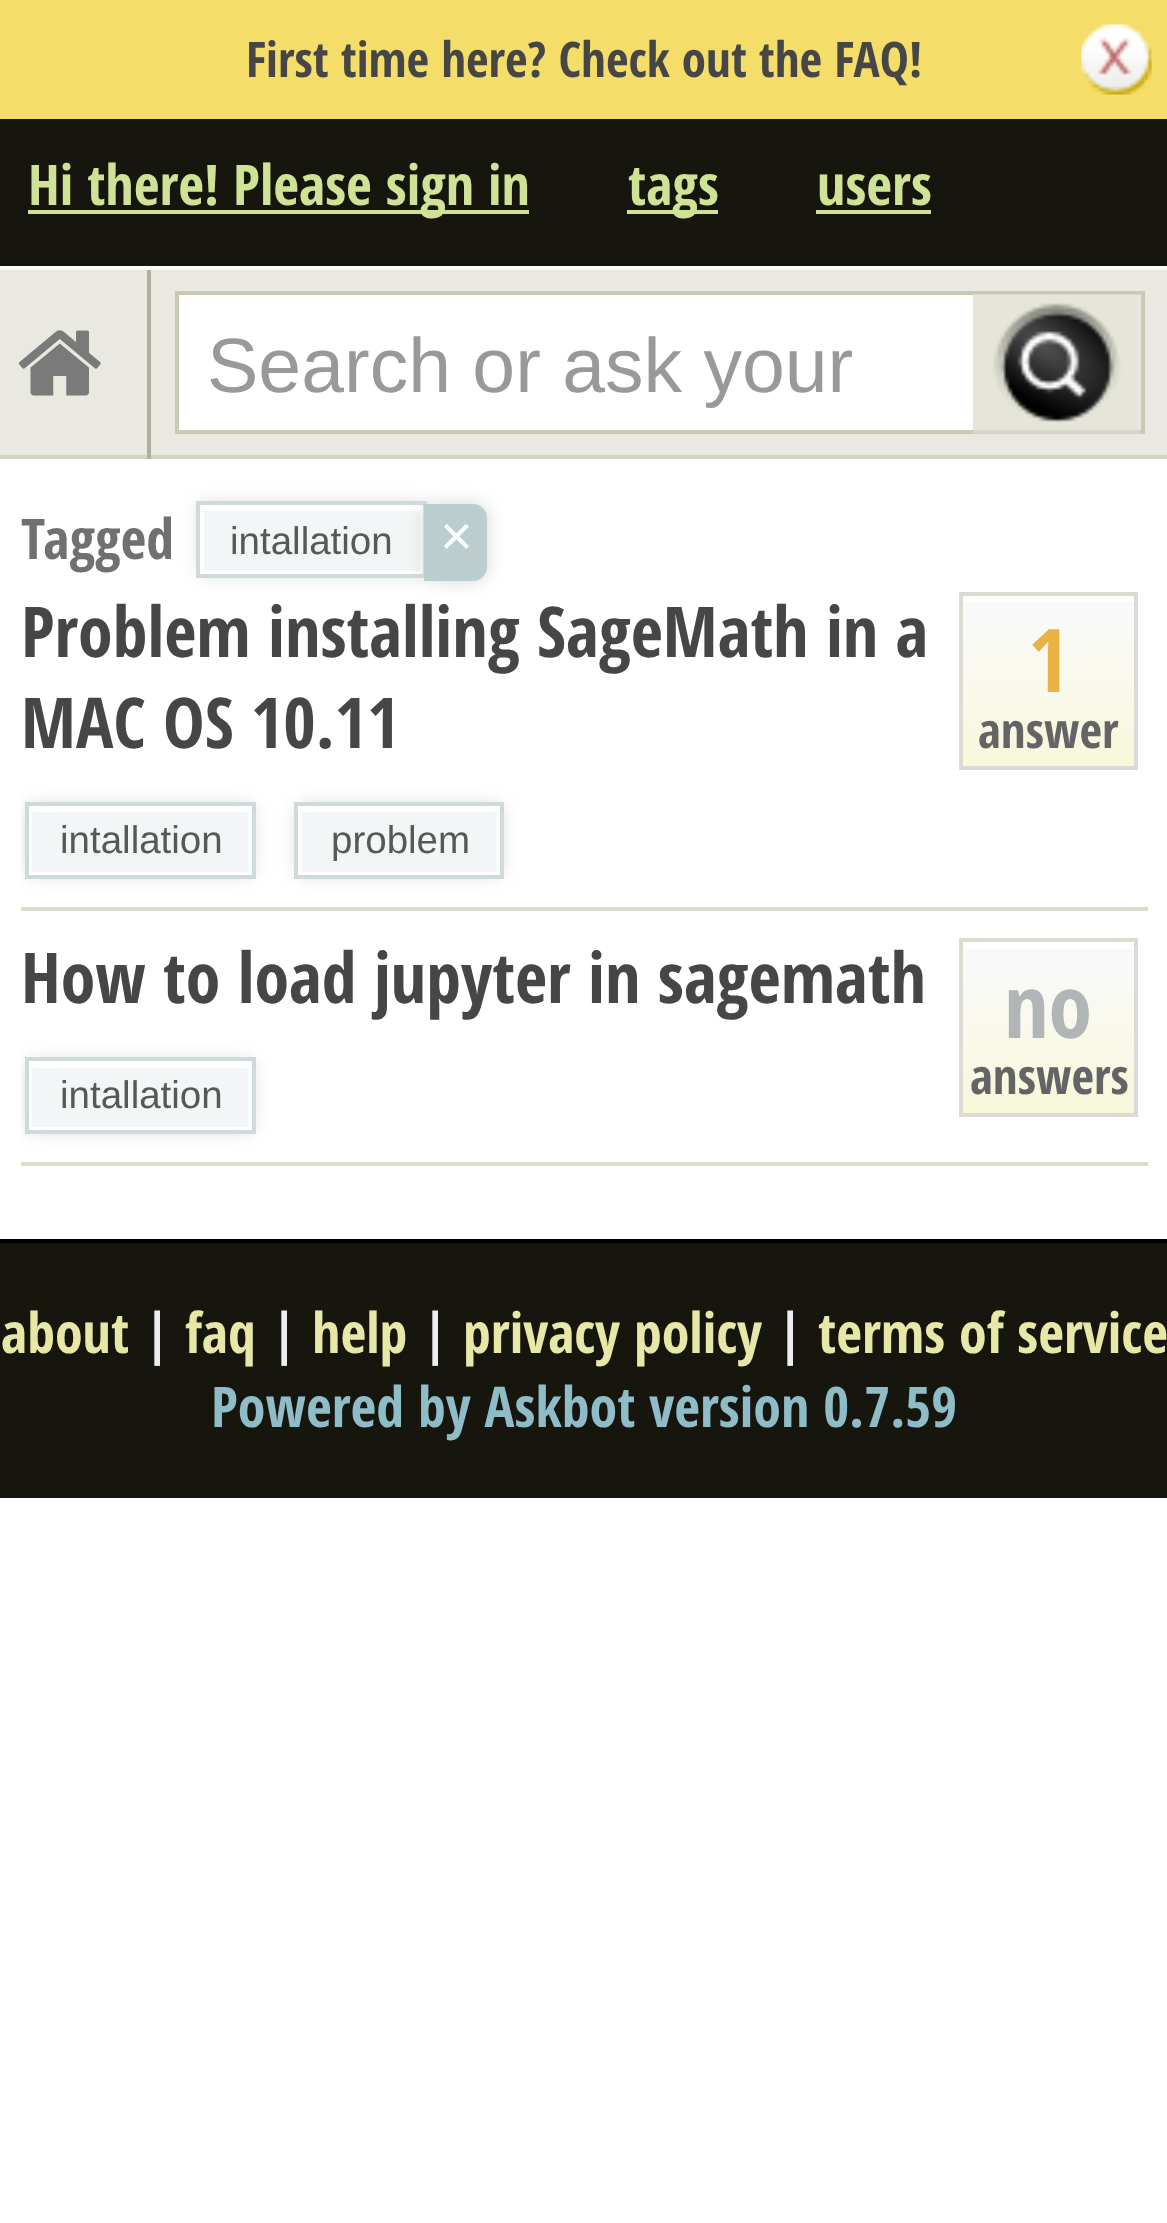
<!DOCTYPE html>
<meta charset="utf-8">
<style>body { margin: 0 } canvas { display: block }</style>
<canvas id="canvas" width="1167" height="2223"></canvas>
<script type="module">
  const canvas = document.getElementById("canvas");
  const ctx = canvas.getContext("2d");
  ctx.miterLimit = 4;
  ctx.fontKerning = "normal";
  async function loadImage(src) {
    const img = new Image();
    img.src = src;
    await img.decode();
    return img;
  }

  ctx.fillStyle = "#ffffff";
  ctx.fillRect(0, 0, 1167, 2223);
  ctx.fillStyle = "#f5dd69";
  ctx.fillRect(0, 0, 1167, 119);
  ctx.font = "bold 49px Open Sans Condensed";
  ctx.fillStyle = "#464646";
  ctx.fillText("First time here? Check out the FAQ!", 246, 77);
  ctx.drawImage(await loadImage("img1.png"), 1081, 24, 71, 71);
  ctx.fillStyle = "#16160f";
  ctx.fillRect(0, 119, 1167, 147);
  ctx.fillStyle = "#d0e296";
  ctx.fillRect(28, 210, 501, 4);
  ctx.font = "bold 56px Open Sans Condensed";
  ctx.fillText("Hi there! Please sign in", 28, 205);
  ctx.fillRect(627, 210, 91, 4);
  ctx.fillText("tags", 628, 205);
  ctx.fillText("users", 817, 205);
  ctx.fillRect(816, 210, 115, 4);
  ctx.fillStyle = "#e9e9e1";
  ctx.fillRect(0, 270, 1167, 185);
  ctx.fillStyle = "#fcfcfc";
  ctx.fillRect(0, 266, 1167, 4);
  ctx.fillStyle = "#d3d3c2";
  ctx.fillRect(0, 455, 1167, 4);
  ctx.fillStyle = "#afaf9e";
  ctx.fillRect(147, 270, 4, 189);
  ctx.drawImage(await loadImage("img2.png"), 18, 330, 83, 66);
  ctx.fillStyle = "#ffffff";
  ctx.beginPath();
  ctx.rect(177, 293, 966, 139);
  ctx.fill();
  ctx.strokeStyle = "#c9c9b5";
  ctx.lineWidth = 4;
  ctx.stroke();
  ctx.font = "77px Liberation Sans";
  ctx.fillStyle = "#999999";
  ctx.fillText("Search or ask your", 207, 392);
  ctx.drawImage(await loadImage("img3.png"), 973, 294, 168, 141);
  ctx.font = "bold 56px Open Sans Condensed";
  ctx.fillStyle = "#707070";
  ctx.fillText("Tagged", 21, 559);
  ctx.fillStyle = "#d3d6d7";
  ctx.filter = "blur(9px)";
  ctx.beginPath();
  ctx.rect(200, 504, 224, 70);
  ctx.fill();
  ctx.filter = "none";
  ctx.fillStyle = "#f3f6f6";
  ctx.fillRect(204, 511, 216, 60);
  ctx.fillStyle = "#ffffff";
  ctx.fillRect(200, 505, 224, 6);
  ctx.fillRect(420, 504, 3, 70);
  ctx.fillRect(200, 571, 224, 3);
  ctx.fillRect(200, 504, 4, 70);
  ctx.strokeStyle = "#cfdbdb";
  ctx.strokeRect(198, 503, 227, 73);
  ctx.font = "38.5px Liberation Sans";
  ctx.fillStyle = "#585858";
  ctx.fillText("intallation", 230, 554);
  ctx.fillStyle = "#d3d6d7";
  ctx.filter = "blur(9px)";
  ctx.beginPath();
  ctx.roundRect(424, 504, 63, 77, 14);
  ctx.fill();
  ctx.filter = "none";
  ctx.fillStyle = "#bbcdcd";
  ctx.beginPath();
  ctx.roundRect(424, 504, 63, 77, [0, 14, 14, 0]);
  ctx.fill();
  ctx.font = "56px Liberation Sans";
  ctx.fillStyle = "#ffffff";
  ctx.fillText("×", 440, 555);
  ctx.fillStyle = "#dddbce";
  ctx.fillRect(21, 907, 1127, 4);
  ctx.font = "bold 70px Open Sans Condensed";
  ctx.fillStyle = "#464646";
  ctx.fillText("Problem installing SageMath in a", 21, 657);
  ctx.fillText("MAC OS 10.11", 21, 748);
  ctx.drawImage(await loadImage("img4.png"), 963, 602, 171, 164);
  ctx.strokeStyle = "#dbdbd4";
  ctx.strokeRect(961, 594, 175, 174);
  ctx.font = "bold 88px Open Sans Condensed";
  ctx.fillStyle = "#eab243";
  ctx.fillText("1", 1028, 692);
  ctx.font = "bold 49px Open Sans Condensed";
  ctx.fillStyle = "#646464";
  ctx.fillText("answer", 978, 748);
  ctx.save();
  ctx.beginPath();
  ctx.rect(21, 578, 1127, 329);
  ctx.clip();
  ctx.beginPath();
  ctx.moveTo(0, 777);
  ctx.lineTo(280, 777);
  ctx.lineTo(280, 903);
  ctx.lineTo(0, 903);
  ctx.closePath();
  ctx.moveTo(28, 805);
  ctx.lineTo(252, 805);
  ctx.lineTo(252, 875);
  ctx.lineTo(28, 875);
  ctx.closePath();
  ctx.clip("evenodd");
  ctx.fillStyle = "#d3d6d7";
  ctx.filter = "blur(9px)";
  ctx.beginPath();
  ctx.rect(28, 805, 224, 70);
  ctx.fill();
  ctx.filter = "none";
  ctx.restore();
  ctx.fillStyle = "#f3f6f6";
  ctx.fillRect(32, 812, 217, 60);
  ctx.strokeStyle = "#cfdbdb";
  ctx.strokeRect(27, 804, 227, 73);
  ctx.font = "38.5px Liberation Sans";
  ctx.fillStyle = "#585858";
  ctx.fillText("intallation", 60, 853);
  ctx.fillStyle = "#d3d6d7";
  ctx.filter = "blur(9px)";
  ctx.beginPath();
  ctx.rect(298, 805, 203, 70);
  ctx.fill();
  ctx.filter = "none";
  ctx.fillStyle = "#f3f6f6";
  ctx.fillRect(302, 812, 195, 60);
  ctx.fillStyle = "#ffffff";
  ctx.fillRect(298, 806, 203, 6);
  ctx.fillRect(497, 805, 3, 70);
  ctx.fillRect(298, 872, 203, 3);
  ctx.fillRect(298, 805, 4, 70);
  ctx.strokeRect(296, 804, 206, 73);
  ctx.fillStyle = "#585858";
  ctx.fillText("problem", 331, 853);
  ctx.fillStyle = "#dddbce";
  ctx.fillRect(21, 1162, 1127, 4);
  ctx.font = "bold 70px Open Sans Condensed";
  ctx.fillStyle = "#464646";
  ctx.fillText("How to load jupyter in sagemath", 21, 1003);
  ctx.drawImage(await loadImage("img5.png"), 963, 949, 171, 164);
  ctx.strokeStyle = "#dbdbd4";
  ctx.strokeRect(961, 940, 175, 175);
  ctx.font = "bold 88px Open Sans Condensed";
  ctx.fillStyle = "#b1b5b6";
  ctx.fillText("no", 1004, 1038);
  ctx.font = "bold 49px Open Sans Condensed";
  ctx.fillStyle = "#646464";
  ctx.fillText("answers", 970, 1094);
  ctx.save();
  ctx.beginPath();
  ctx.rect(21, 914, 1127, 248);
  ctx.clip();
  ctx.beginPath();
  ctx.moveTo(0, 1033);
  ctx.lineTo(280, 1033);
  ctx.lineTo(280, 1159);
  ctx.lineTo(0, 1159);
  ctx.closePath();
  ctx.moveTo(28, 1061);
  ctx.lineTo(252, 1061);
  ctx.lineTo(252, 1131);
  ctx.lineTo(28, 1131);
  ctx.closePath();
  ctx.clip("evenodd");
  ctx.fillStyle = "#d3d6d7";
  ctx.filter = "blur(9px)";
  ctx.beginPath();
  ctx.rect(28, 1061, 224, 70);
  ctx.fill();
  ctx.filter = "none";
  ctx.restore();
  ctx.fillStyle = "#f3f6f6";
  ctx.fillRect(32, 1068, 217, 59);
  ctx.fillStyle = "#ffffff";
  ctx.fillRect(249, 1130, 3, 1);
  ctx.strokeStyle = "#cfdbdb";
  ctx.strokeRect(27, 1059, 227, 73);
  ctx.font = "38.5px Liberation Sans";
  ctx.fillStyle = "#585858";
  ctx.fillText("intallation", 60, 1108);
  ctx.fillStyle = "#16160f";
  ctx.fillRect(0, 1243, 1167, 255);
  ctx.fillStyle = "#000000";
  ctx.fillRect(0, 1239, 1167, 4);
  ctx.font = "bold 56px Open Sans Condensed";
  ctx.fillStyle = "#e7e8a8";
  ctx.fillText("about", 1, 1353);
  ctx.fillStyle = "#eeeeee";
  ctx.fillText("|", 143, 1353);
  ctx.fillStyle = "#e7e8a8";
  ctx.fillText("faq", 185, 1353);
  ctx.fillStyle = "#eeeeee";
  ctx.fillText("|", 270, 1353);
  ctx.fillStyle = "#e7e8a8";
  ctx.fillText("help", 312, 1353);
  ctx.fillStyle = "#eeeeee";
  ctx.fillText("|", 421, 1353);
  ctx.fillStyle = "#e7e8a8";
  ctx.fillText("privacy policy", 463, 1353);
  ctx.fillStyle = "#eeeeee";
  ctx.fillText("|", 776, 1353);
  ctx.fillStyle = "#e7e8a8";
  ctx.fillText("terms of service", 818, 1353);
  ctx.fillStyle = "#8ebcc7";
  ctx.fillText("Powered by Askbot version 0.7.59", 211, 1427);
</script>
